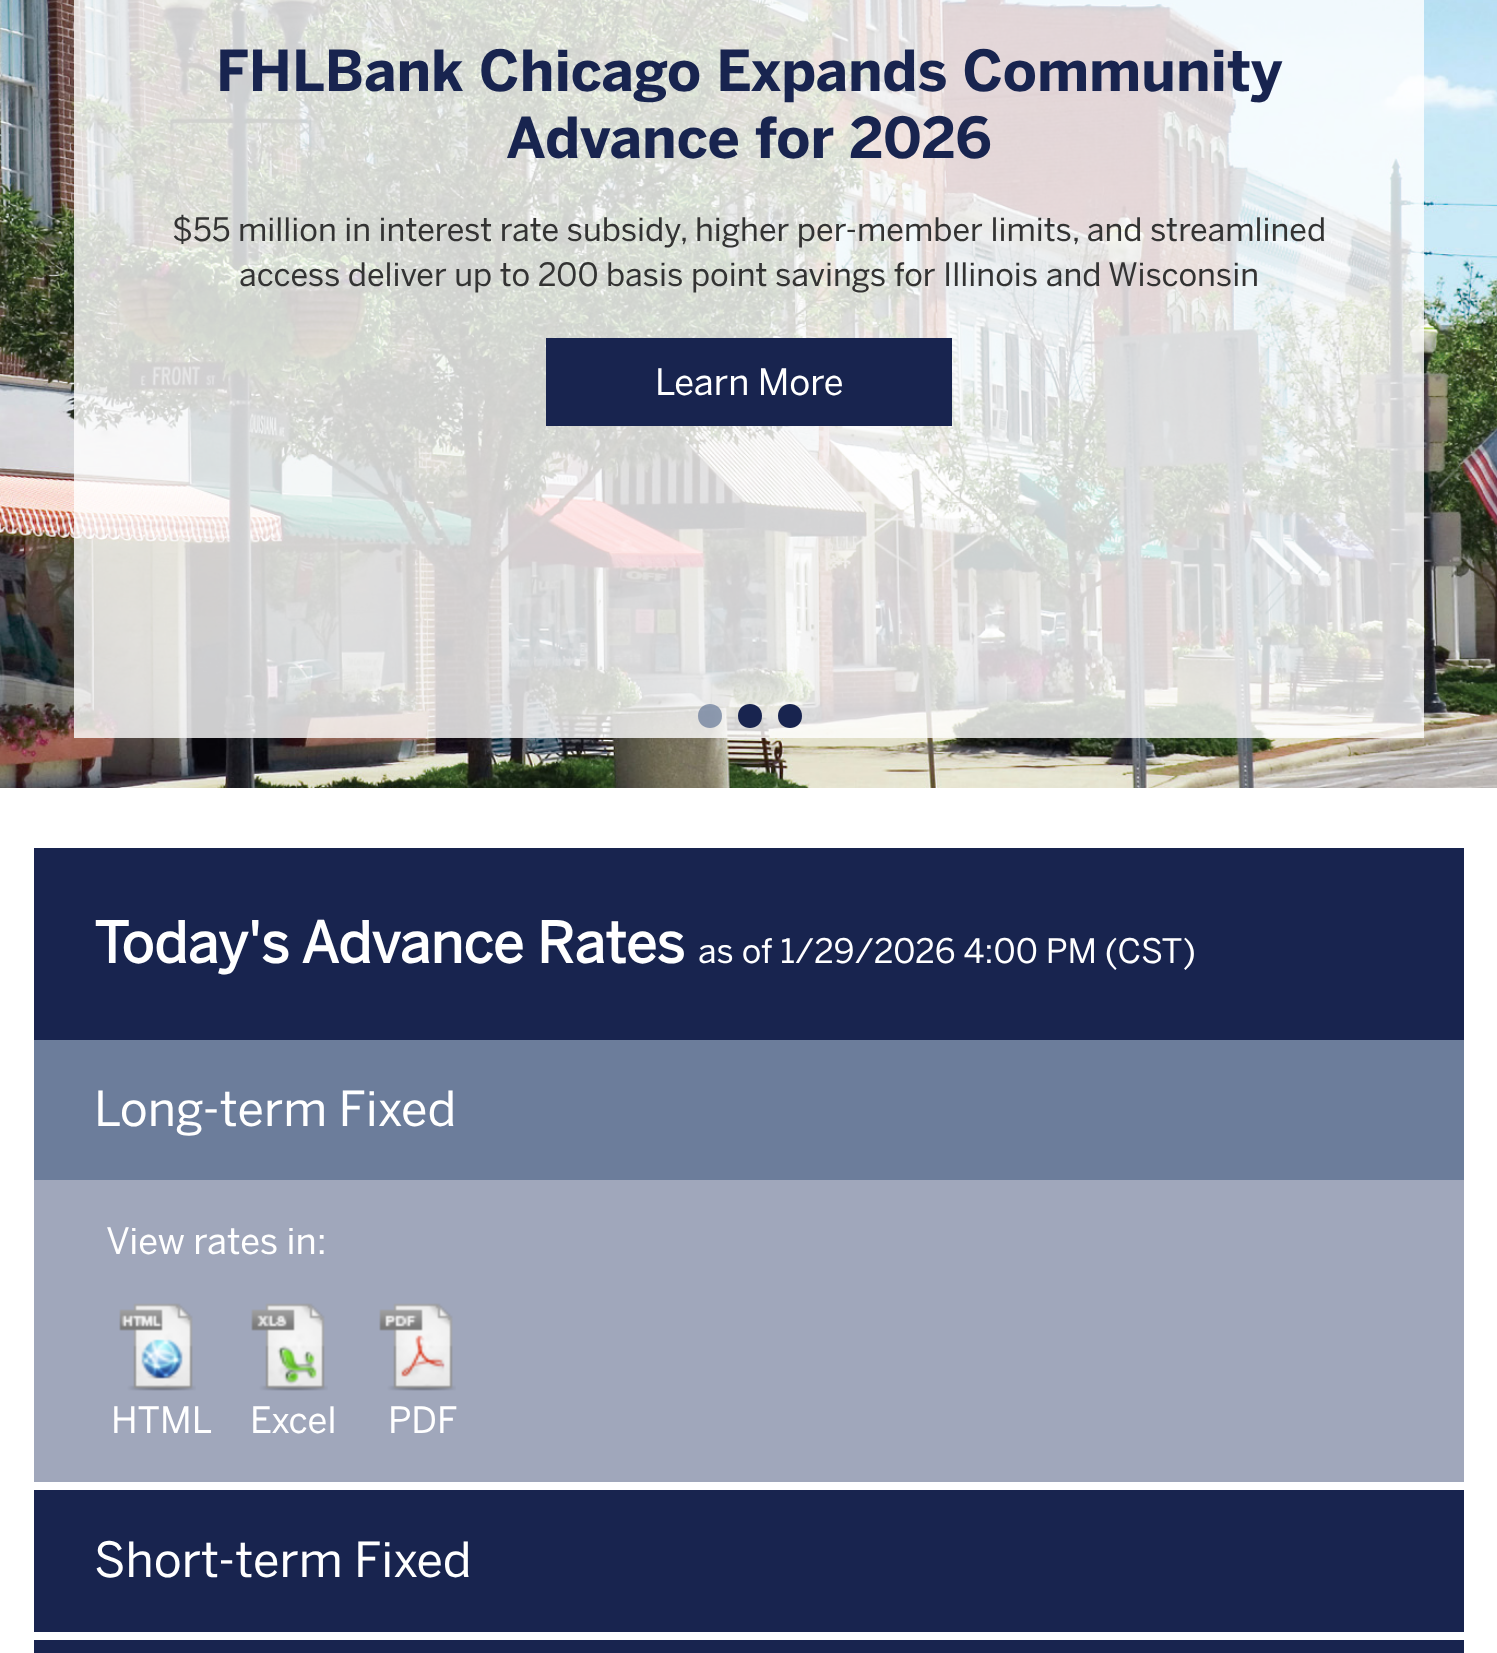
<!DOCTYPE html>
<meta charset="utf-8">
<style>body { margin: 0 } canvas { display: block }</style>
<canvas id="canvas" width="1497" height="1653"></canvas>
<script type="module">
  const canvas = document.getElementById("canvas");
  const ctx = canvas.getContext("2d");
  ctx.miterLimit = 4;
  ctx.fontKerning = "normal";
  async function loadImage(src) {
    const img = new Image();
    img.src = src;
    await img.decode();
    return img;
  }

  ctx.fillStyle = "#ffffff";
  ctx.fillRect(0, 0, 1497, 1653);
  ctx.drawImage(await loadImage("img1.png"), 0, 0, 1497, 788);
  ctx.fillStyle = "rgba(255, 255, 255, 0.8)";
  ctx.fillRect(74, 0, 1350, 738);
  ctx.font = "bold 56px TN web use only";
  ctx.fillStyle = "#18244f";
  ctx.fillText("FHLBank Chicago Expands Community", 216, 91);
  ctx.fillText("Advance for 2026", 506, 158);
  ctx.font = "32px TN web use only";
  ctx.fillStyle = "#333333";
  ctx.fillText("$55 million in interest rate subsidy, higher per-member limits, and streamlined", 172, 241);
  ctx.fillText("access deliver up to 200 basis point savings for Illinois and Wisconsin", 239, 286);
  ctx.fillStyle = "#18244f";
  ctx.fillRect(546, 338, 406, 88);
  ctx.font = "36px TN web use only";
  ctx.fillStyle = "#ffffff";
  ctx.fillText("Learn More", 655, 395);
  ctx.fillStyle = "rgba(108, 125, 155, 0.75)";
  ctx.beginPath();
  ctx.moveTo(722, 716);
  ctx.bezierCurveTo(722, 700, 698, 700, 698, 716);
  ctx.bezierCurveTo(698, 732, 722, 732, 722, 716);
  ctx.closePath();
  ctx.fill();
  ctx.fillStyle = "#18244f";
  ctx.beginPath();
  ctx.moveTo(762, 716);
  ctx.bezierCurveTo(762, 700, 738, 700, 738, 716);
  ctx.bezierCurveTo(738, 732, 762, 732, 762, 716);
  ctx.closePath();
  ctx.fill();
  ctx.beginPath();
  ctx.moveTo(802, 716);
  ctx.bezierCurveTo(802, 700, 778, 700, 778, 716);
  ctx.bezierCurveTo(778, 732, 802, 732, 802, 716);
  ctx.closePath();
  ctx.fill();
  ctx.fillRect(34, 848, 1430, 192);
  ctx.font = "bold 56px 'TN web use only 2'";
  ctx.fillStyle = "#ffffff";
  ctx.fillText("Today's Advance Rates", 94, 963);
  ctx.font = "33.6px TN web use only";
  ctx.fillText("as of 1/29/2026 4:00 PM (CST)", 698, 963);
  ctx.fillStyle = "#6c7d9b";
  ctx.fillRect(34, 1040, 1430, 140);
  ctx.font = "48px TN web use only";
  ctx.fillStyle = "#ffffff";
  ctx.fillText("Long-term Fixed", 94, 1126);
  ctx.fillStyle = "#a0a7bb";
  ctx.fillRect(34, 1180, 1430, 302);
  ctx.font = "36px TN web use only";
  ctx.fillStyle = "#ffffff";
  ctx.fillText("View rates in:", 106, 1254);
  ctx.drawImage(await loadImage("img2.png"), 119, 1303, 77, 88);
  ctx.fillText("HTML", 111, 1433);
  ctx.drawImage(await loadImage("img3.png"), 251, 1303, 77, 88);
  ctx.fillText("Excel", 250, 1433);
  ctx.drawImage(await loadImage("img4.png"), 379, 1303, 77, 88);
  ctx.fillText("PDF", 388, 1433);
  ctx.fillStyle = "#18244f";
  ctx.fillRect(34, 1490, 1430, 142);
  ctx.font = "48px TN web use only";
  ctx.fillStyle = "#ffffff";
  ctx.fillText("Short-term Fixed", 94, 1577);
  ctx.fillStyle = "#18244f";
  ctx.fillRect(34, 1640, 1430, 13);
</script>
